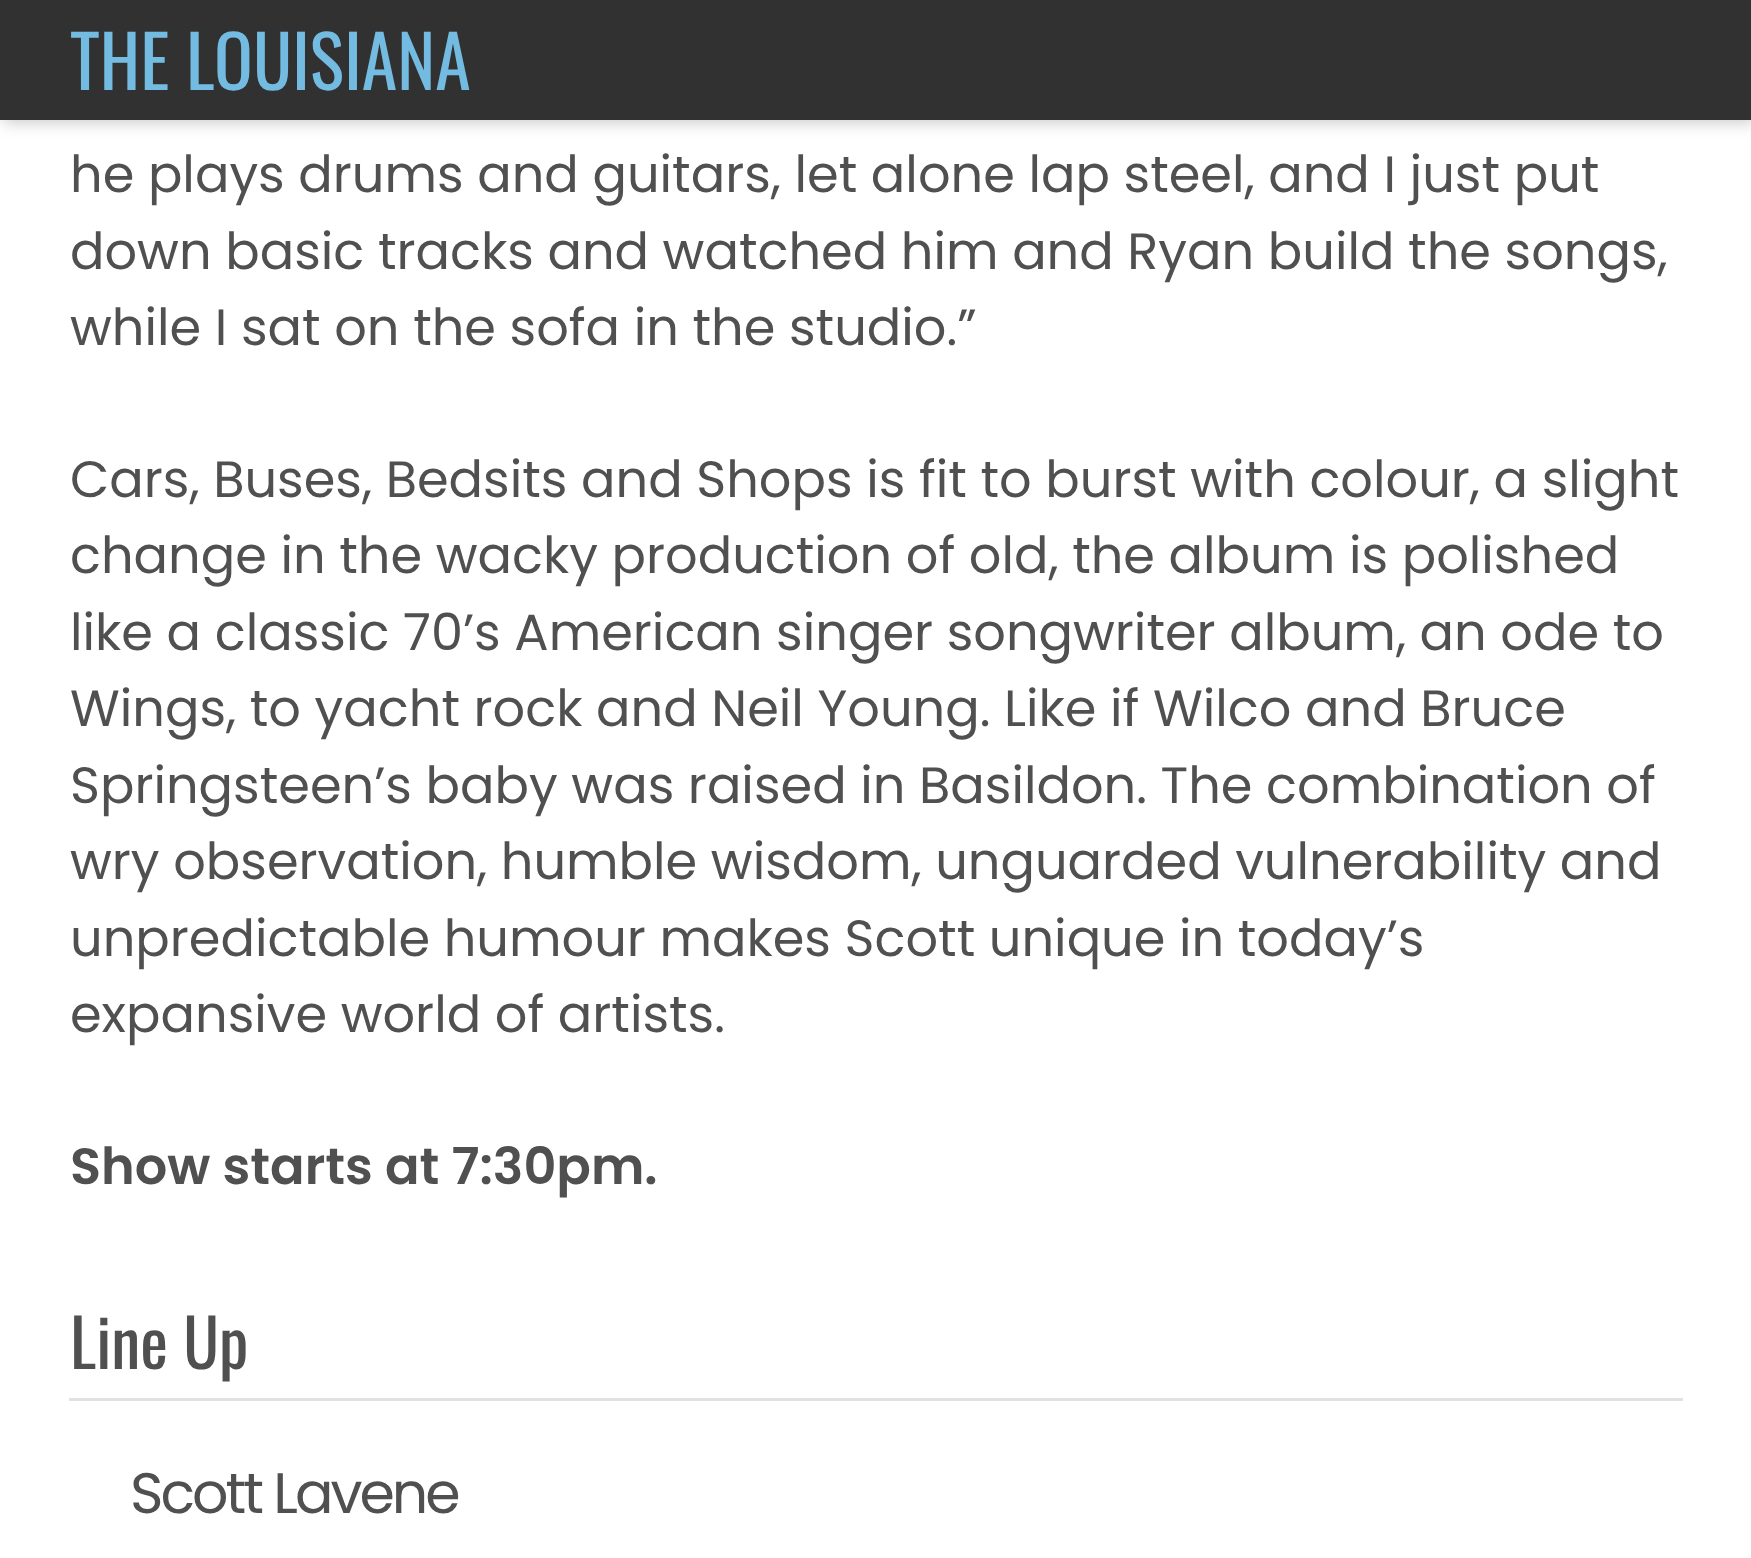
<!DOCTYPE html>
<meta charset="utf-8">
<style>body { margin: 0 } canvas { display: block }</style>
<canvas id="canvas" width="1751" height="1558"></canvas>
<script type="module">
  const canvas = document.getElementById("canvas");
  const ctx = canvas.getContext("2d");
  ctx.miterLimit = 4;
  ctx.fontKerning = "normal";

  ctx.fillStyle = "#ffffff";
  ctx.fillRect(0, 0, 1751, 1558);
  ctx.fillStyle = "rgba(0, 0, 0, 0.2)";
  ctx.filter = "blur(7.5px)";
  ctx.beginPath();
  ctx.rect(3, 3, 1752, 120);
  ctx.fill();
  ctx.filter = "none";
  ctx.fillStyle = "#313131";
  ctx.fillRect(0, 0, 1751, 120);
  ctx.font = "72px Oswald";
  ctx.fillStyle = "#73bbe0";
  ctx.fillText("THE LOUISIANA", 70, 90);
  ctx.font = "51px Poppins";
  ctx.fillStyle = "#505050";
  ctx.fillText("he plays drums and guitars, let alone lap steel, and I just put", 70, 192);
  ctx.fillText("down basic tracks and watched him and Ryan build the songs,", 70, 269);
  ctx.fillText("while I sat on the sofa in the studio.”", 70, 345);
  ctx.fillText("Cars, Buses, Bedsits and Shops is fit to burst with colour, a slight", 70, 497);
  ctx.fillText("change in the wacky production of old, the album is polished", 70, 573);
  ctx.fillText("like a classic 70’s American singer songwriter album, an ode to", 70, 650);
  ctx.fillText("Wings, to yacht rock and Neil Young. Like if Wilco and Bruce", 70, 726);
  ctx.fillText("Springsteen’s baby was raised in Basildon. The combination of", 70, 803);
  ctx.fillText("wry observation, humble wisdom, unguarded vulnerability and", 70, 879);
  ctx.fillText("unpredictable humour makes Scott unique in today’s", 70, 956);
  ctx.fillText("expansive world of artists.", 70, 1032);
  ctx.font = "600 51px Poppins";
  ctx.fillText("Show starts at 7:30pm.", 70, 1184);
  ctx.fillStyle = "#e1e1e1";
  ctx.fillRect(69, 1398, 1614, 3);
  ctx.font = "66px Oswald";
  ctx.fillStyle = "#505050";
  ctx.fillText("Line Up", 70, 1369);
  ctx.letterSpacing = "-3px";
  ctx.font = "57px Poppins";
  ctx.fillText("Scott Lavene", 130, 1513);
</script>
